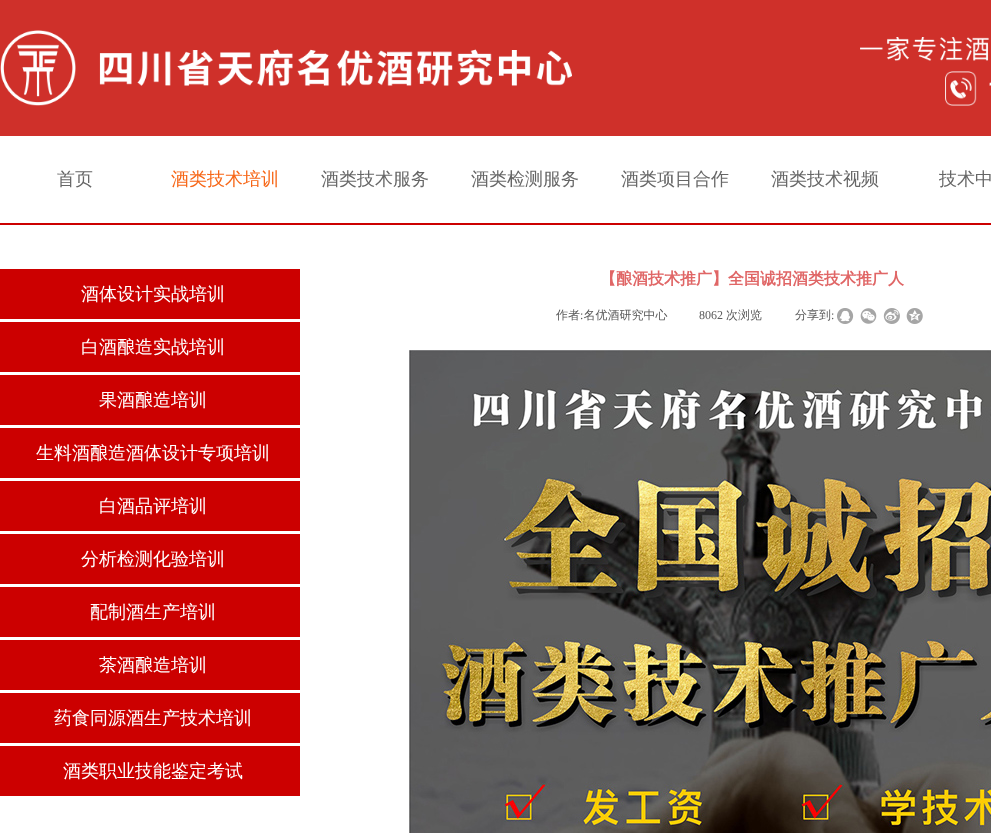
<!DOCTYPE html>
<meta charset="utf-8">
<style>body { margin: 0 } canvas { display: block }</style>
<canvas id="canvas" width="991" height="833"></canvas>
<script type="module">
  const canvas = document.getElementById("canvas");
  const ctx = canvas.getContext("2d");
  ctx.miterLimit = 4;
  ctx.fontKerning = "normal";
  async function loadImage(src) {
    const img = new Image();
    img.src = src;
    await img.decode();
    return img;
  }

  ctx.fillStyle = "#ffffff";
  ctx.fillRect(0, 0, 991, 833);
  ctx.fillStyle = "#cf302a";
  ctx.fillRect(0, 0, 991, 136);
  ctx.drawImage(await loadImage("img1.png"), 0, 30, 572, 76);
  ctx.drawImage(await loadImage("img2.png"), 860, 37, 129, 24);
  ctx.drawImage(await loadImage("img3.png"), 945, 71, 46, 35);
  ctx.font = "500 18px WenQuanYi Zen Hei";
  ctx.fillStyle = "#666666";
  ctx.fillText("首页", 57, 185);
  ctx.fillStyle = "#f76616";
  ctx.fillText("酒类技术培训", 171, 185);
  ctx.fillStyle = "#666666";
  ctx.fillText("酒类技术服务", 321, 185);
  ctx.fillText("酒类检测服务", 471, 185);
  ctx.fillText("酒类项目合作", 621, 185);
  ctx.fillText("酒类技术视频", 771, 185);
  ctx.fillText("技术中", 939, 185);
  ctx.fillStyle = "#cc0000";
  ctx.fillRect(0, 223, 991, 2);
  ctx.fillRect(0, 269, 300, 50);
  ctx.fillStyle = "#ffffff";
  ctx.fillText("酒体设计实战培训", 81, 300);
  ctx.fillStyle = "#cc0000";
  ctx.fillRect(0, 322, 300, 50);
  ctx.fillStyle = "#ffffff";
  ctx.fillText("白酒酿造实战培训", 81, 353);
  ctx.fillStyle = "#cc0000";
  ctx.fillRect(0, 375, 300, 50);
  ctx.fillStyle = "#ffffff";
  ctx.fillText("果酒酿造培训", 99, 406);
  ctx.fillStyle = "#cc0000";
  ctx.fillRect(0, 428, 300, 50);
  ctx.fillStyle = "#ffffff";
  ctx.fillText("生料酒酿造酒体设计专项培训", 36, 459);
  ctx.fillStyle = "#cc0000";
  ctx.fillRect(0, 481, 300, 50);
  ctx.fillStyle = "#ffffff";
  ctx.fillText("白酒品评培训", 99, 512);
  ctx.fillStyle = "#cc0000";
  ctx.fillRect(0, 534, 300, 50);
  ctx.fillStyle = "#ffffff";
  ctx.fillText("分析检测化验培训", 81, 565);
  ctx.fillStyle = "#cc0000";
  ctx.fillRect(0, 587, 300, 50);
  ctx.fillStyle = "#ffffff";
  ctx.fillText("配制酒生产培训", 90, 618);
  ctx.fillStyle = "#cc0000";
  ctx.fillRect(0, 640, 300, 50);
  ctx.fillStyle = "#ffffff";
  ctx.fillText("茶酒酿造培训", 99, 671);
  ctx.fillStyle = "#cc0000";
  ctx.fillRect(0, 693, 300, 50);
  ctx.fillStyle = "#ffffff";
  ctx.fillText("药食同源酒生产技术培训", 54, 724);
  ctx.fillStyle = "#cc0000";
  ctx.fillRect(0, 746, 300, 50);
  ctx.fillStyle = "#ffffff";
  ctx.fillText("酒类职业技能鉴定考试", 63, 777);
  ctx.font = "bold 16px WenQuanYi Zen Hei";
  ctx.fillStyle = "#e06666";
  ctx.fillText("【酿酒技术推广】全国诚招酒类技术推广人", 600, 284);
  ctx.font = "500 12px WenQuanYi Zen Hei";
  ctx.fillStyle = "#5a5a5a";
  ctx.fillText("作者 名优酒研究中心", 556, 319);
  ctx.font = "12px Liberation Serif";
  ctx.fillText(":", 580, 319);
  ctx.fillText("8062", 699, 319);
  ctx.font = "500 12px WenQuanYi Zen Hei";
  ctx.fillText("次浏览", 726, 319);
  ctx.fillText("分享到", 795, 319);
  ctx.font = "12px Liberation Serif";
  ctx.fillText(":", 831, 319);
  ctx.drawImage(await loadImage("img4.png"), 837, 308, 17, 16);
  ctx.drawImage(await loadImage("img5.png"), 860, 308, 17, 16);
  ctx.drawImage(await loadImage("img6.png"), 883, 308, 17, 16);
  ctx.drawImage(await loadImage("img7.png"), 906, 308, 17, 16);
  ctx.drawImage(await loadImage("img8.png"), 409, 350, 582, 483);
</script>
